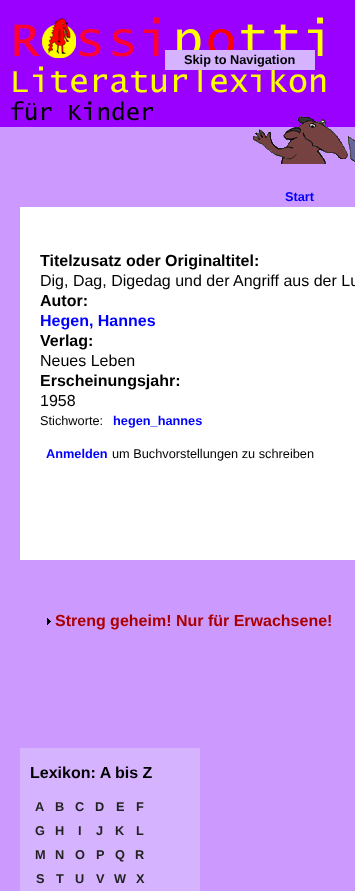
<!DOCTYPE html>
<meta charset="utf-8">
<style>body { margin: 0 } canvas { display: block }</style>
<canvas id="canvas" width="355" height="891"></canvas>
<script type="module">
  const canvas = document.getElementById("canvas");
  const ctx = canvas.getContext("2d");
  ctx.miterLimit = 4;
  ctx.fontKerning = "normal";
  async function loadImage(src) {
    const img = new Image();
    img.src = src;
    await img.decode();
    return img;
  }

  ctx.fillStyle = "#9900ff";
  ctx.fillRect(0, 0, 355, 891);
  ctx.drawImage(await loadImage("img1.png"), 0, 17, 333, 110);
  ctx.fillStyle = "#d6b3fe";
  ctx.fillRect(165, 50, 150, 20);
  ctx.font = "bold 12.75px Liberation Sans";
  ctx.fillStyle = "#000000";
  ctx.fillText("Skip to Navigation", 184, 64);
  ctx.fillStyle = "#cc99ff";
  ctx.fillRect(0, 127, 355, 764);
  ctx.drawImage(await loadImage("img2.png"), 348, 136, 7, 26);
  ctx.drawImage(await loadImage("img3.png"), 253, 116, 95, 48);
  ctx.fillStyle = "#0000ff";
  ctx.fillText("Start", 285, 201);
  ctx.fillStyle = "#ffffff";
  ctx.fillRect(20, 207, 335, 353);
  ctx.font = "bold 16px Liberation Sans";
  ctx.fillStyle = "#000000";
  ctx.fillText("Titelzusatz oder Originaltitel:", 40, 266);
  ctx.font = "16px Liberation Sans";
  ctx.fillText("Dig, Dag, Digedag und der Angriff aus der Lu", 40, 286);
  ctx.font = "bold 16px Liberation Sans";
  ctx.fillText("Autor:", 40, 306);
  ctx.fillStyle = "#0000ff";
  ctx.fillText("Hegen, Hannes", 40, 326);
  ctx.fillStyle = "#000000";
  ctx.fillText("Verlag:", 40, 346);
  ctx.font = "16px Liberation Sans";
  ctx.fillText("Neues Leben", 40, 366);
  ctx.font = "bold 16px Liberation Sans";
  ctx.fillText("Erscheinungsjahr:", 40, 386);
  ctx.font = "16px Liberation Sans";
  ctx.fillText("1958", 40, 406);
  ctx.font = "12.75px Liberation Sans";
  ctx.fillText("Stichworte:", 40, 425);
  ctx.font = "bold 12.75px Liberation Sans";
  ctx.fillStyle = "#0000ff";
  ctx.fillText("hegen_hannes", 113, 425);
  ctx.fillText("Anmelden", 46, 458);
  ctx.font = "12.75px Liberation Sans";
  ctx.fillStyle = "#000000";
  ctx.fillText("um Buchvorstellungen zu schreiben", 112, 458);
  ctx.drawImage(await loadImage("img4.png"), 47, 618, 4, 7);
  ctx.font = "bold 16px Liberation Sans";
  ctx.fillStyle = "#aa0000";
  ctx.fillText("Streng geheim! Nur für Erwachsene!", 55, 626);
  ctx.fillStyle = "#d6b3fe";
  ctx.fillRect(20, 748, 180, 143);
  ctx.fillStyle = "#000000";
  ctx.fillText("Lexikon: A bis Z", 30, 778);
  ctx.font = "bold 12.75px Liberation Sans";
  ctx.fillStyle = "#222222";
  ctx.fillText("A", 35, 811);
  ctx.fillText("B", 55, 811);
  ctx.fillText("C", 75, 811);
  ctx.fillText("D", 95, 811);
  ctx.fillText("E", 116, 811);
  ctx.fillText("F", 136, 811);
  ctx.fillText("G", 35, 835);
  ctx.fillText("H", 55, 835);
  ctx.fillText("I", 78, 835);
  ctx.fillText("J", 96, 835);
  ctx.fillText("K", 115, 835);
  ctx.fillText("L", 136, 835);
  ctx.fillText("M", 35, 859);
  ctx.fillText("N", 55, 859);
  ctx.fillText("O", 75, 859);
  ctx.fillText("P", 96, 859);
  ctx.fillText("Q", 115, 859);
  ctx.fillText("R", 135, 859);
  ctx.fillText("S", 36, 883);
  ctx.fillText("T", 56, 883);
  ctx.fillText("U", 75, 883);
  ctx.fillText("V", 96, 883);
  ctx.fillText("W", 114, 883);
  ctx.fillText("X", 136, 883);
</script>
